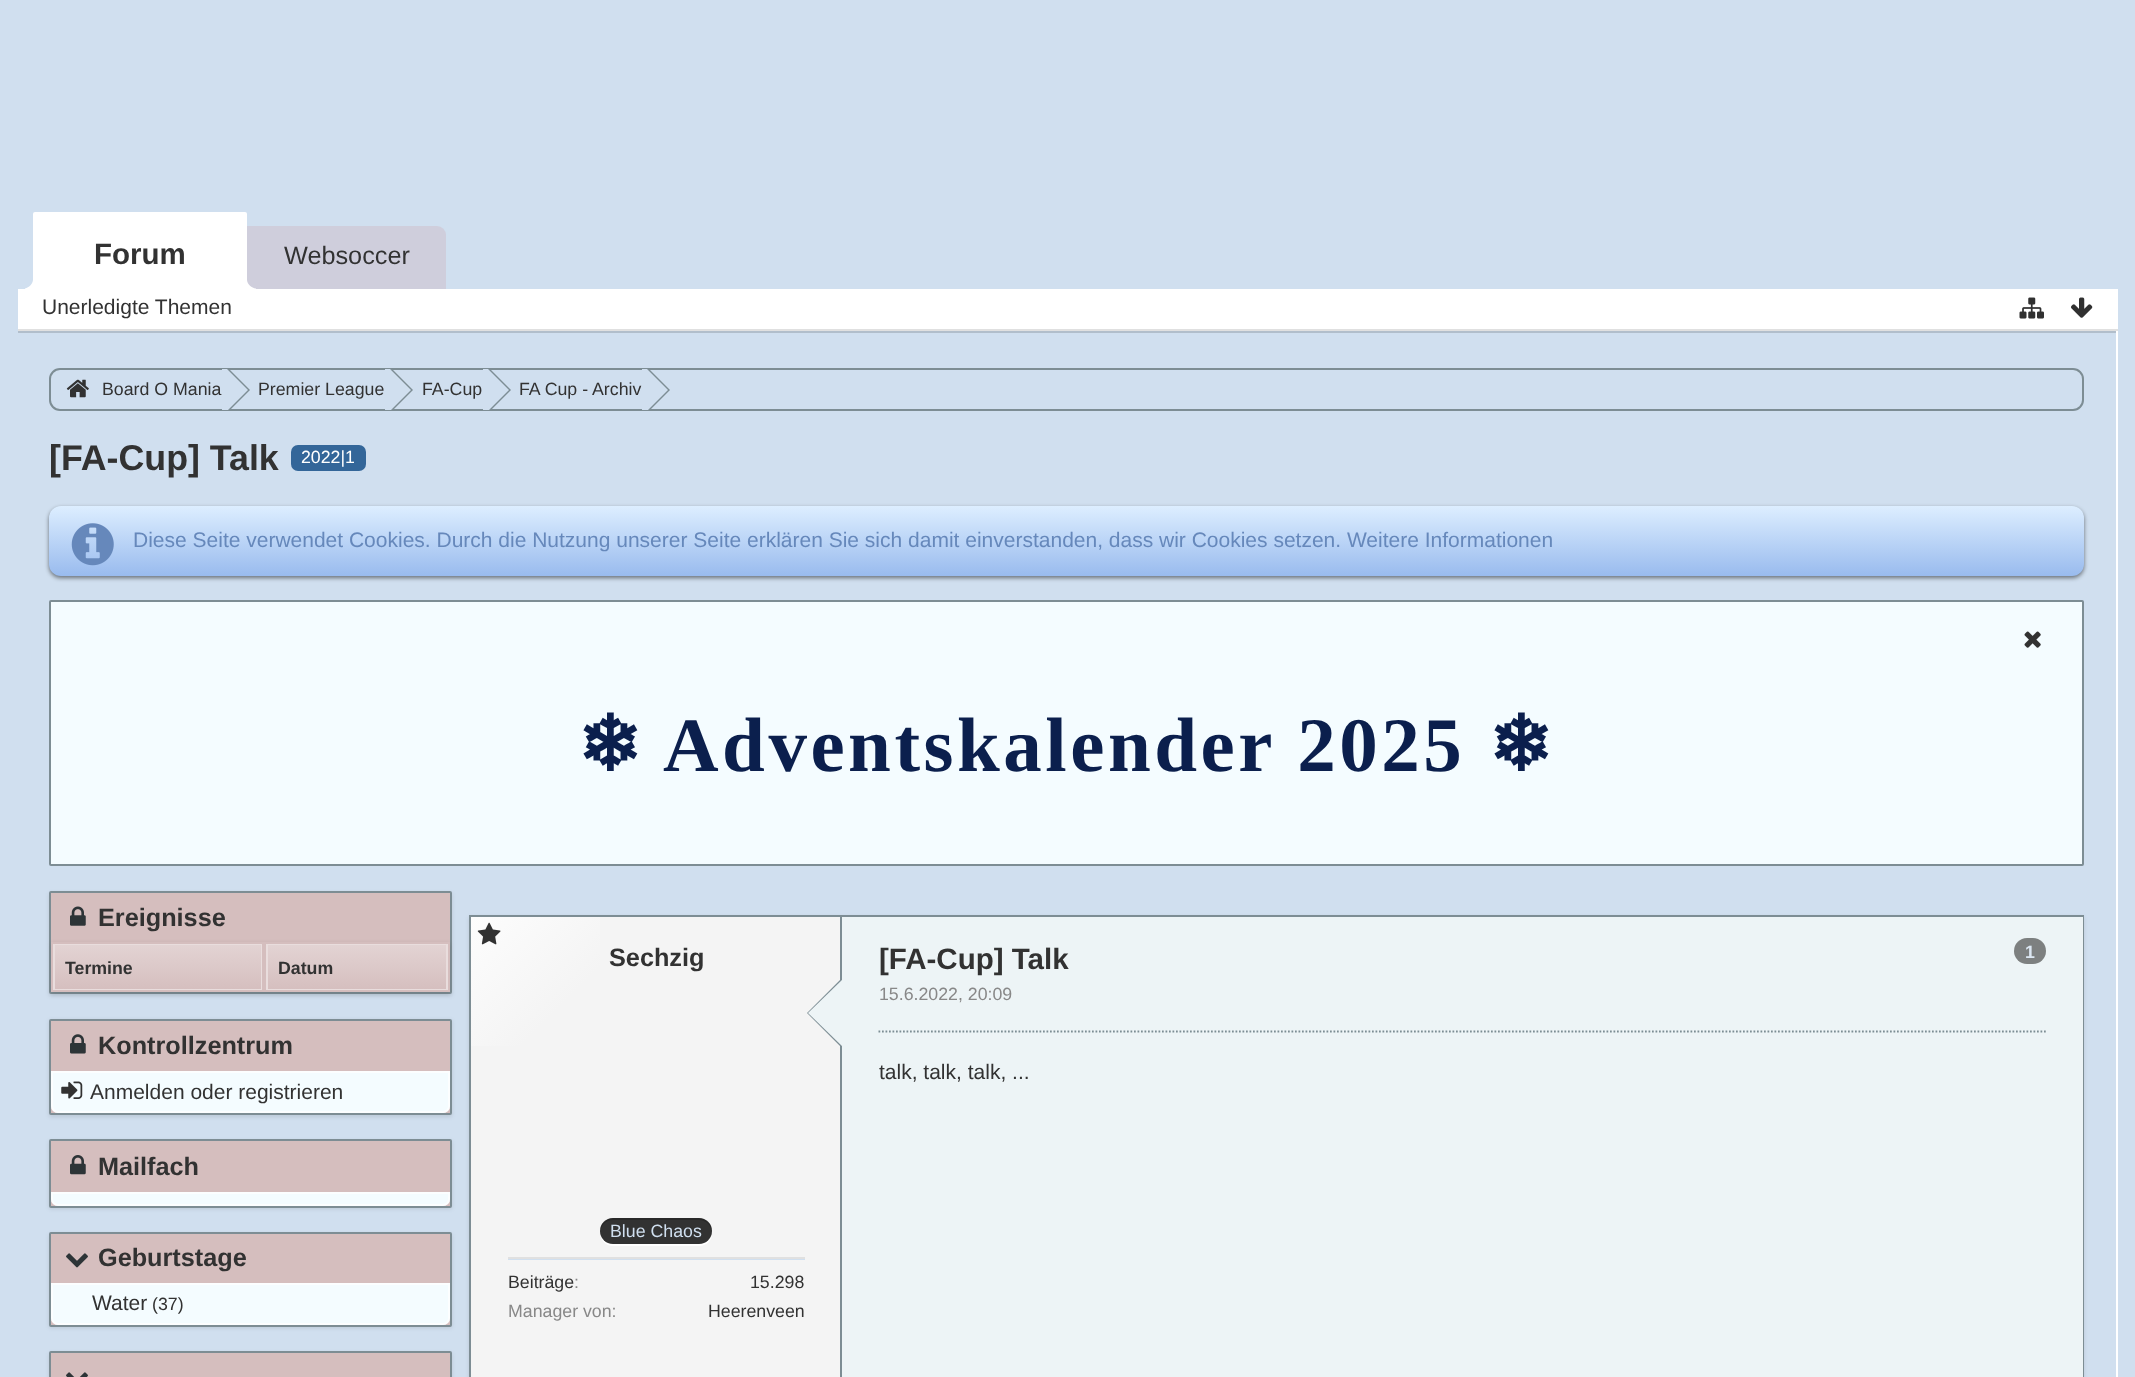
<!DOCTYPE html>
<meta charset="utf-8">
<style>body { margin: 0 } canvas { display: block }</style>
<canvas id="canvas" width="2135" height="1377"></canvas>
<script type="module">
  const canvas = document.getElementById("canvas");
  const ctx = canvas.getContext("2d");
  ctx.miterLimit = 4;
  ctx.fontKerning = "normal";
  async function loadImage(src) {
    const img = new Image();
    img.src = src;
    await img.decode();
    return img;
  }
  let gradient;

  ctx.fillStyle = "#d0dfef";
  ctx.fillRect(0, 0, 2135, 1377);
  ctx.fillStyle = "#cfcedc";
  ctx.beginPath();
  ctx.roundRect(33, 226, 413, 63, [9, 9, 0, 0]);
  ctx.fill();
  ctx.fillStyle = "#ffffff";
  ctx.beginPath();
  ctx.roundRect(33, 212, 214, 77, [2, 2, 0, 0]);
  ctx.fill();
  ctx.font = "bold 29.5px Liberation Sans";
  ctx.fillStyle = "#323232";
  ctx.fillText("Forum", 94, 264);
  ctx.fillStyle = "#ffffff";
  ctx.fillRect(18, 289, 2100, 40);
  ctx.beginPath();
  ctx.moveTo(25, 288.5);
  ctx.lineTo(25, 292);
  ctx.bezierCurveTo(32.5, 292, 37, 287.5, 37, 280);
  ctx.lineTo(33, 280);
  ctx.bezierCurveTo(32.5, 284, 29, 287.5, 25, 288.5);
  ctx.closePath();
  ctx.fill();
  ctx.beginPath();
  ctx.moveTo(243, 280);
  ctx.bezierCurveTo(243, 288.5, 248, 292, 256, 292);
  ctx.lineTo(256, 288.5);
  ctx.bezierCurveTo(251.5, 288, 247.5, 284.5, 247, 280);
  ctx.closePath();
  ctx.fill();
  ctx.font = "25.25px Liberation Sans";
  ctx.fillStyle = "#323232";
  ctx.fillText("Websoccer", 284, 264);
  ctx.fillStyle = "#e0e0e0";
  ctx.fillRect(18, 329, 2100, 2);
  ctx.font = "21px Liberation Sans";
  ctx.fillStyle = "#323232";
  ctx.fillText("Unerledigte Themen", 42, 314);
  ctx.drawImage(await loadImage("img1.png"), 2019, 297, 25, 22);
  ctx.drawImage(await loadImage("img2.png"), 2071, 297, 22, 21);
  ctx.fillStyle = "#ffffff";
  ctx.fillRect(2116, 331, 2, 1046);
  ctx.fillStyle = "#b1becb";
  ctx.fillRect(18, 331, 2098, 2);
  ctx.beginPath();
  ctx.roundRect(50, 369, 2033, 41, 10);
  ctx.strokeStyle = "#7d8d94";
  ctx.lineWidth = 2;
  ctx.stroke();
  ctx.drawImage(await loadImage("img3.png"), 66, 379, 23, 19);
  ctx.font = "17.75px Liberation Sans";
  ctx.fillStyle = "#323232";
  ctx.fillText("Board O Mania", 102, 395);
  ctx.fillStyle = "#7d8d94";
  ctx.beginPath();
  ctx.moveTo(229, 369);
  ctx.lineTo(250, 390);
  ctx.lineTo(230, 410);
  ctx.lineTo(224, 410);
  ctx.lineTo(224, 369);
  ctx.closePath();
  ctx.fill();
  ctx.fillStyle = "#d0dfef";
  ctx.beginPath();
  ctx.moveTo(227, 369);
  ctx.lineTo(248, 390);
  ctx.lineTo(228, 410);
  ctx.lineTo(222, 410);
  ctx.lineTo(222, 369);
  ctx.closePath();
  ctx.fill();
  ctx.fillStyle = "#323232";
  ctx.fillText("Premier League", 258, 395);
  ctx.fillStyle = "#7d8d94";
  ctx.beginPath();
  ctx.moveTo(392, 369);
  ctx.lineTo(413, 390);
  ctx.lineTo(393, 410);
  ctx.lineTo(387, 410);
  ctx.lineTo(387, 369);
  ctx.closePath();
  ctx.fill();
  ctx.fillStyle = "#d0dfef";
  ctx.beginPath();
  ctx.moveTo(390, 369);
  ctx.lineTo(411, 390);
  ctx.lineTo(391, 410);
  ctx.lineTo(385, 410);
  ctx.lineTo(385, 369);
  ctx.closePath();
  ctx.fill();
  ctx.fillStyle = "#323232";
  ctx.fillText("FA-Cup", 422, 395);
  ctx.fillStyle = "#7d8d94";
  ctx.beginPath();
  ctx.moveTo(490, 369);
  ctx.lineTo(511, 390);
  ctx.lineTo(491, 410);
  ctx.lineTo(485, 410);
  ctx.lineTo(485, 369);
  ctx.closePath();
  ctx.fill();
  ctx.fillStyle = "#d0dfef";
  ctx.beginPath();
  ctx.moveTo(488, 369);
  ctx.lineTo(509, 390);
  ctx.lineTo(489, 410);
  ctx.lineTo(483, 410);
  ctx.lineTo(483, 369);
  ctx.closePath();
  ctx.fill();
  ctx.fillStyle = "#323232";
  ctx.fillText("FA Cup - Archiv", 519, 395);
  ctx.fillStyle = "#7d8d94";
  ctx.beginPath();
  ctx.moveTo(649, 369);
  ctx.lineTo(670, 390);
  ctx.lineTo(650, 410);
  ctx.lineTo(644, 410);
  ctx.lineTo(644, 369);
  ctx.closePath();
  ctx.fill();
  ctx.fillStyle = "#d0dfef";
  ctx.beginPath();
  ctx.moveTo(647, 369);
  ctx.lineTo(668, 390);
  ctx.lineTo(648, 410);
  ctx.lineTo(642, 410);
  ctx.lineTo(642, 369);
  ctx.closePath();
  ctx.fill();
  ctx.font = "bold 35.75px Liberation Sans";
  ctx.fillStyle = "#323232";
  ctx.fillText("[FA-Cup] Talk", 49, 470);
  ctx.fillStyle = "#336699";
  ctx.beginPath();
  ctx.roundRect(291, 445, 75, 26, 7);
  ctx.fill();
  ctx.font = "17.75px Liberation Sans";
  ctx.fillStyle = "#ffffff";
  ctx.fillText("2022|1", 301, 463);
  ctx.fillStyle = "rgba(0, 0, 0, 0.5)";
  ctx.filter = "blur(2px)";
  ctx.beginPath();
  ctx.roundRect(49, 508, 2035, 70, 12);
  ctx.fill();
  ctx.filter = "none";
  gradient = ctx.createLinearGradient(1067, 506, 1067, 576);
  gradient.addColorStop(0, "#ddeeff");
  gradient.addColorStop(1, "#99bbee");
  ctx.fillStyle = gradient;
  ctx.beginPath();
  ctx.roundRect(49, 506, 2035, 70, 12);
  ctx.fill();
  ctx.drawImage(await loadImage("img4.png"), 71, 523, 43, 43);
  ctx.font = "21px Liberation Sans";
  ctx.fillStyle = "#6688bb";
  ctx.fillText("Diese Seite verwendet Cookies. Durch die Nutzung unserer Seite erklären Sie sich damit einverstanden, dass wir Cookies setzen. Weitere Informationen", 133, 547);
  ctx.fillStyle = "#f4fcff";
  ctx.beginPath();
  ctx.roundRect(50, 601, 2033, 264, 1);
  ctx.fill();
  ctx.stroke();
  ctx.drawImage(await loadImage("img5.png"), 2024, 631, 17, 17);
  ctx.letterSpacing = "3.5px";
  ctx.font = "bold 77px DejaVu Sans";
  ctx.fillStyle = "#0b1f4d";
  ctx.fillText("❄", 577, 771);
  ctx.font = "bold 77px Liberation Serif";
  ctx.fillText("Adventskalender 2025", 663, 771);
  ctx.font = "bold 77px DejaVu Sans";
  ctx.fillText("❄", 1488, 771);
  ctx.fillStyle = "rgba(0, 0, 0, 0.1)";
  ctx.filter = "blur(2px)";
  ctx.beginPath();
  ctx.roundRect(49, 893, 403, 103, 2);
  ctx.fill();
  ctx.filter = "none";
  ctx.fillStyle = "#d5bebe";
  ctx.beginPath();
  ctx.roundRect(50, 892, 401, 101, 1);
  ctx.fill();
  ctx.stroke();
  ctx.drawImage(await loadImage("img6.png"), 70, 906, 16, 20);
  ctx.letterSpacing = "0px";
  ctx.font = "bold 25.25px Liberation Sans";
  ctx.fillStyle = "#323232";
  ctx.fillText("Ereignisse", 98, 926);
  ctx.fillStyle = "rgba(0, 0, 0, 0.1)";
  ctx.filter = "blur(2px)";
  ctx.beginPath();
  ctx.roundRect(51, 943, 399, 51, 2);
  ctx.fill();
  ctx.filter = "none";
  gradient = ctx.createLinearGradient(158, 943, 158, 991);
  gradient.addColorStop(0, "#e3d4d4");
  gradient.addColorStop(1, "#d5bebe");
  ctx.fillStyle = gradient;
  ctx.fillRect(55, 945, 206, 44);
  ctx.strokeStyle = "#e9dddd";
  ctx.strokeRect(54, 944, 208, 46);
  ctx.strokeStyle = "#d5bebe";
  ctx.strokeRect(52, 943, 211, 48);
  ctx.font = "bold 17.75px Liberation Sans";
  ctx.fillStyle = "#323232";
  ctx.fillText("Termine", 65, 974);
  gradient = ctx.createLinearGradient(357, 943, 357, 991);
  gradient.addColorStop(0, "#e3d4d4");
  gradient.addColorStop(1, "#d5bebe");
  ctx.fillStyle = gradient;
  ctx.fillRect(268, 945, 178, 44);
  ctx.strokeStyle = "#e9dddd";
  ctx.strokeRect(267, 944, 180, 46);
  ctx.strokeStyle = "#d5bebe";
  ctx.strokeRect(265, 943, 184, 48);
  ctx.fillStyle = "#323232";
  ctx.fillText("Datum", 278, 974);
  ctx.fillStyle = "rgba(0, 0, 0, 0.1)";
  ctx.filter = "blur(2px)";
  ctx.beginPath();
  ctx.roundRect(49, 1020, 403, 97, 2);
  ctx.fill();
  ctx.filter = "none";
  ctx.fillStyle = "#d5bebe";
  ctx.beginPath();
  ctx.roundRect(50, 1020, 401, 94, 1);
  ctx.fill();
  ctx.strokeStyle = "#7d8d94";
  ctx.stroke();
  ctx.drawImage(await loadImage("img7.png"), 70, 1034, 16, 20);
  ctx.font = "bold 25.25px Liberation Sans";
  ctx.fillStyle = "#323232";
  ctx.fillText("Kontrollzentrum", 98, 1054);
  ctx.fillStyle = "#f4fcff";
  ctx.beginPath();
  ctx.roundRect(51, 1071, 399, 42, [0, 0, 7, 7]);
  ctx.fill();
  ctx.beginPath();
  ctx.roundRect(52, 1072, 397, 40, [0, 0, 6, 6]);
  ctx.strokeStyle = "rgba(255, 255, 255, 0.7)";
  ctx.stroke();
  ctx.drawImage(await loadImage("img8.png"), 61, 1081, 22, 18);
  ctx.font = "21px Liberation Sans";
  ctx.fillStyle = "#323232";
  ctx.fillText("Anmelden oder registrieren", 90, 1099);
  ctx.fillStyle = "rgba(0, 0, 0, 0.1)";
  ctx.filter = "blur(2px)";
  ctx.beginPath();
  ctx.roundRect(49, 1141, 403, 68, 2);
  ctx.fill();
  ctx.filter = "none";
  ctx.fillStyle = "#d5bebe";
  ctx.beginPath();
  ctx.roundRect(50, 1140, 401, 67, 1);
  ctx.fill();
  ctx.strokeStyle = "#7d8d94";
  ctx.stroke();
  ctx.drawImage(await loadImage("img9.png"), 70, 1155, 16, 20);
  ctx.font = "bold 25.25px Liberation Sans";
  ctx.fillStyle = "#323232";
  ctx.fillText("Mailfach", 98, 1175);
  ctx.fillStyle = "#f4fcff";
  ctx.beginPath();
  ctx.roundRect(51, 1192, 399, 14, [0, 0, 7, 7]);
  ctx.fill();
  ctx.beginPath();
  ctx.roundRect(52, 1193, 397, 12, [0, 0, 6, 6]);
  ctx.strokeStyle = "rgba(255, 255, 255, 0.7)";
  ctx.stroke();
  ctx.fillStyle = "rgba(0, 0, 0, 0.1)";
  ctx.filter = "blur(2px)";
  ctx.beginPath();
  ctx.roundRect(49, 1234, 403, 94, 2);
  ctx.fill();
  ctx.filter = "none";
  ctx.fillStyle = "#d5bebe";
  ctx.beginPath();
  ctx.roundRect(50, 1233, 401, 93, 1);
  ctx.fill();
  ctx.strokeStyle = "#7d8d94";
  ctx.stroke();
  ctx.drawImage(await loadImage("img10.png"), 66, 1253, 22, 15);
  ctx.fillStyle = "#323232";
  ctx.fillText("Geburtstage", 98, 1266);
  ctx.fillStyle = "#f4fcff";
  ctx.beginPath();
  ctx.roundRect(51, 1283, 399, 42, [0, 0, 7, 7]);
  ctx.fill();
  ctx.beginPath();
  ctx.roundRect(52, 1284, 397, 40, [0, 0, 6, 6]);
  ctx.strokeStyle = "rgba(255, 255, 255, 0.7)";
  ctx.stroke();
  ctx.font = "21px Liberation Sans";
  ctx.fillStyle = "#323232";
  ctx.fillText("Water", 92, 1310);
  ctx.font = "17.75px Liberation Sans";
  ctx.fillText("(37)", 152, 1310);
  ctx.fillStyle = "rgba(0, 0, 0, 0.1)";
  ctx.filter = "blur(2px)";
  ctx.beginPath();
  ctx.roundRect(49, 1353, 403, 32, 2);
  ctx.fill();
  ctx.filter = "none";
  ctx.fillStyle = "#d5bebe";
  ctx.beginPath();
  ctx.roundRect(50, 1352, 401, 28, 1);
  ctx.fill();
  ctx.strokeStyle = "#7d8d94";
  ctx.stroke();
  ctx.drawImage(await loadImage("img11.png"), 66, 1372, 22, 5);
  ctx.fillStyle = "rgba(0, 0, 0, 0.1)";
  ctx.filter = "blur(2px)";
  ctx.beginPath();
  ctx.rect(469, 917, 1615, 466);
  ctx.fill();
  ctx.filter = "none";
  ctx.fillStyle = "#f4f4f4";
  ctx.fillRect(471, 917, 369, 460);
  ctx.strokeRect(470, 916, 1613, 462);
  gradient = ctx.createLinearGradient(471, 917, 695, 1141);
  gradient.addColorStop(0, "#fdfdfd");
  gradient.addColorStop(0.4, "#f4f4f4");
  ctx.fillStyle = gradient;
  ctx.fillRect(471, 917, 129, 129);
  ctx.drawImage(await loadImage("img12.png"), 477, 922, 24, 23);
  ctx.font = "bold 25.25px Liberation Sans";
  ctx.fillStyle = "#323232";
  ctx.fillText("Sechzig", 609, 966);
  ctx.fillStyle = "#ffffff";
  ctx.beginPath();
  ctx.moveTo(600, 1230);
  ctx.lineTo(600, 1233);
  ctx.bezierCurveTo(600, 1240, 606, 1246, 613, 1246);
  ctx.lineTo(699, 1246);
  ctx.bezierCurveTo(706, 1246, 712, 1241, 712, 1234);
  ctx.bezierCurveTo(711, 1240, 705, 1244, 699, 1244);
  ctx.lineTo(613, 1244);
  ctx.bezierCurveTo(606, 1244, 600, 1238, 600, 1231);
  ctx.closePath();
  ctx.fill();
  ctx.fillStyle = "#323232";
  ctx.beginPath();
  ctx.roundRect(600, 1218, 112, 26, 13);
  ctx.fill();
  ctx.fillStyle = "rgba(0, 0, 0, 0.2)";
  ctx.beginPath();
  ctx.moveTo(613, 1220);
  ctx.lineTo(699, 1220);
  ctx.bezierCurveTo(706, 1220, 711, 1225, 712, 1232);
  ctx.lineTo(712, 1231);
  ctx.bezierCurveTo(712, 1224, 706, 1218, 699, 1218);
  ctx.lineTo(613, 1218);
  ctx.bezierCurveTo(606, 1218, 600, 1224, 600, 1231);
  ctx.lineTo(600, 1232);
  ctx.bezierCurveTo(601, 1225, 606, 1220, 613, 1220);
  ctx.closePath();
  ctx.fill();
  ctx.font = "17.75px Liberation Sans";
  ctx.fillStyle = "#d0dfef";
  ctx.fillText("Blue Chaos", 610, 1237);
  ctx.fillRect(508, 1259, 297, 1);
  ctx.fillStyle = "#e0e0e0";
  ctx.fillRect(508, 1257, 297, 2);
  ctx.fillStyle = "#323232";
  ctx.fillText("Beiträge", 508, 1288);
  ctx.fillStyle = "#888888";
  ctx.fillText(":", 574, 1288);
  ctx.fillStyle = "#323232";
  ctx.fillText("15.298", 750, 1288);
  ctx.fillStyle = "#888888";
  ctx.fillText("Manager von:", 508, 1317);
  ctx.fillStyle = "#323232";
  ctx.fillText("Heerenveen", 708, 1317);
  ctx.fillStyle = "#edf4f6";
  ctx.fillRect(842, 917, 1241, 460);
  ctx.fillStyle = "#7d8d94";
  ctx.fillRect(840, 917, 2, 460);
  ctx.beginPath();
  ctx.moveTo(842, 978);
  ctx.lineTo(842, 1048);
  ctx.lineTo(807, 1013);
  ctx.closePath();
  ctx.fill();
  ctx.font = "bold 29.5px Liberation Sans";
  ctx.fillStyle = "#323232";
  ctx.fillText("[FA-Cup] Talk", 879, 969);
  ctx.font = "17.75px Liberation Sans";
  ctx.fillStyle = "#888888";
  ctx.fillText("15.6.2022, 20:09", 879, 1000);
  ctx.fillStyle = "#7d8080";
  ctx.beginPath();
  ctx.roundRect(2014, 938, 32, 26, 13);
  ctx.fill();
  ctx.font = "bold 17.75px Liberation Sans";
  ctx.fillStyle = "#dce7f2";
  ctx.fillText("1", 2025, 958);
  ctx.fillStyle = "#edf4f6";
  ctx.beginPath();
  ctx.moveTo(844, 978);
  ctx.lineTo(844, 1048);
  ctx.lineTo(808, 1013);
  ctx.closePath();
  ctx.fill();
  ctx.beginPath();
  ctx.moveTo(878.5, 1031.5);
  ctx.lineTo(2046, 1031.5);
  ctx.lineWidth = 1.8;
  ctx.setLineDash([1.75, 1.75]);
  ctx.stroke();
  ctx.font = "21px Liberation Sans";
  ctx.fillStyle = "#323232";
  ctx.fillText("talk, talk, talk, ...", 879, 1079);
</script>
